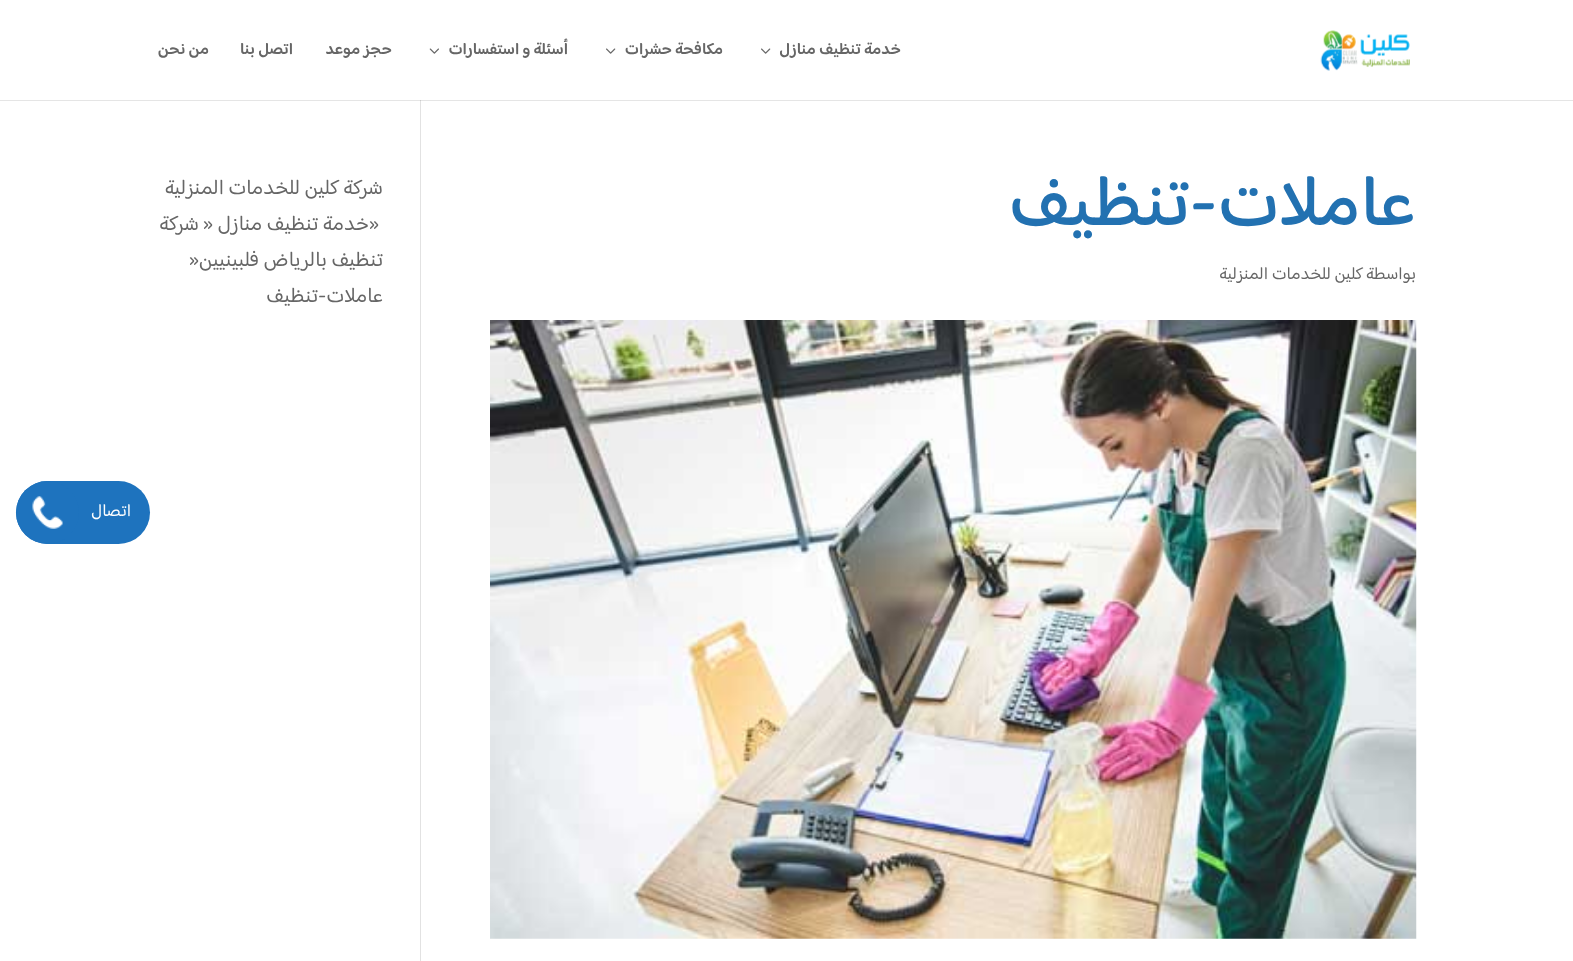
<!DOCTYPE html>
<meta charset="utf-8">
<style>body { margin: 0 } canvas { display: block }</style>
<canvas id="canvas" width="1573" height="961"></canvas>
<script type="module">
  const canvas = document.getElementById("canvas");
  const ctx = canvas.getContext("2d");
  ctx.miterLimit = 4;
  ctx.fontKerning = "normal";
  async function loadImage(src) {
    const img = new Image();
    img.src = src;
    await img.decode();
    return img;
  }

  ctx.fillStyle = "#ffffff";
  ctx.fillRect(0, 0, 1573, 961);
  ctx.fillStyle = "#e2e2e2";
  ctx.fillRect(420, 100, 1, 861);
  ctx.fillStyle = "rgba(0, 0, 0, 0.1)";
  ctx.beginPath();
  ctx.moveTo(0, 100);
  ctx.lineTo(0, 101);
  ctx.lineTo(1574, 101);
  ctx.lineTo(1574, 1);
  ctx.lineTo(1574, 100);
  ctx.closePath();
  ctx.fill();
  ctx.drawImage(await loadImage("img1.png"), 1320, 30, 90, 41);
  ctx.direction = "rtl";
  ctx.font = "600 16.25px 'Baloo Bhaijaan 2'";
  ctx.fillStyle = "#666666";
  ctx.fillText("خدمة تنظيف منازل", 901, 54);
  ctx.drawImage(await loadImage("img2.png"), 761, 48, 10, 6);
  ctx.fillText("مكافحة حشرات", 723, 54);
  ctx.drawImage(await loadImage("img2.png"), 606, 48, 10, 6);
  ctx.fillText("أسئلة و استفسارات", 568, 54);
  ctx.drawImage(await loadImage("img3.png"), 429, 48, 10, 6);
  ctx.fillText("حجز موعد", 392, 54);
  ctx.fillText("اتصل بنا", 293, 54);
  ctx.fillText("من نحن", 209, 54);
  ctx.font = "500 72.5px 'Baloo Bhaijaan 2'";
  ctx.fillStyle = "#2271b1";
  ctx.fillText("عاملات-تنظيف", 1416, 225);
  ctx.font = "17.5px 'Baloo Bhaijaan 2'";
  ctx.fillStyle = "#666666";
  ctx.fillText("بواسطة", 1416, 279);
  ctx.fillText("كلين للخدمات المنزلية", 1363, 279);
  ctx.drawImage(await loadImage("img4.png"), 490, 320, 927, 619);
  ctx.font = "21.25px 'Baloo Bhaijaan 2'";
  ctx.fillText("شركة كلين للخدمات المنزلية", 383, 194);
  ctx.direction = "ltr";
  ctx.fillText("»", 369, 230);
  ctx.direction = "rtl";
  ctx.fillText("خدمة تنظيف منازل", 369, 230);
  ctx.direction = "ltr";
  ctx.fillText("»", 203, 230);
  ctx.direction = "rtl";
  ctx.fillText("شركة", 199, 230);
  ctx.fillText("تنظيف بالرياض فلبينيين", 383, 266);
  ctx.direction = "ltr";
  ctx.fillText("»", 189, 266);
  ctx.direction = "rtl";
  ctx.fillText("عاملات-تنظيف", 383, 302);
  ctx.fillStyle = "#1e73be";
  ctx.beginPath();
  ctx.roundRect(16, 481, 134, 63, 31.5);
  ctx.fill();
  ctx.font = "17.5px 'Baloo Bhaijaan 2'";
  ctx.fillStyle = "#ffffff";
  ctx.fillText("اتصال", 131, 516);
  ctx.fillStyle = "#1e73be";
  ctx.beginPath();
  ctx.arc(47.5, 512.5, 31.5, 0, Math.PI * 2);
  ctx.fill();
  ctx.drawImage(await loadImage("img5.png"), 32, 496, 31, 33);
</script>
